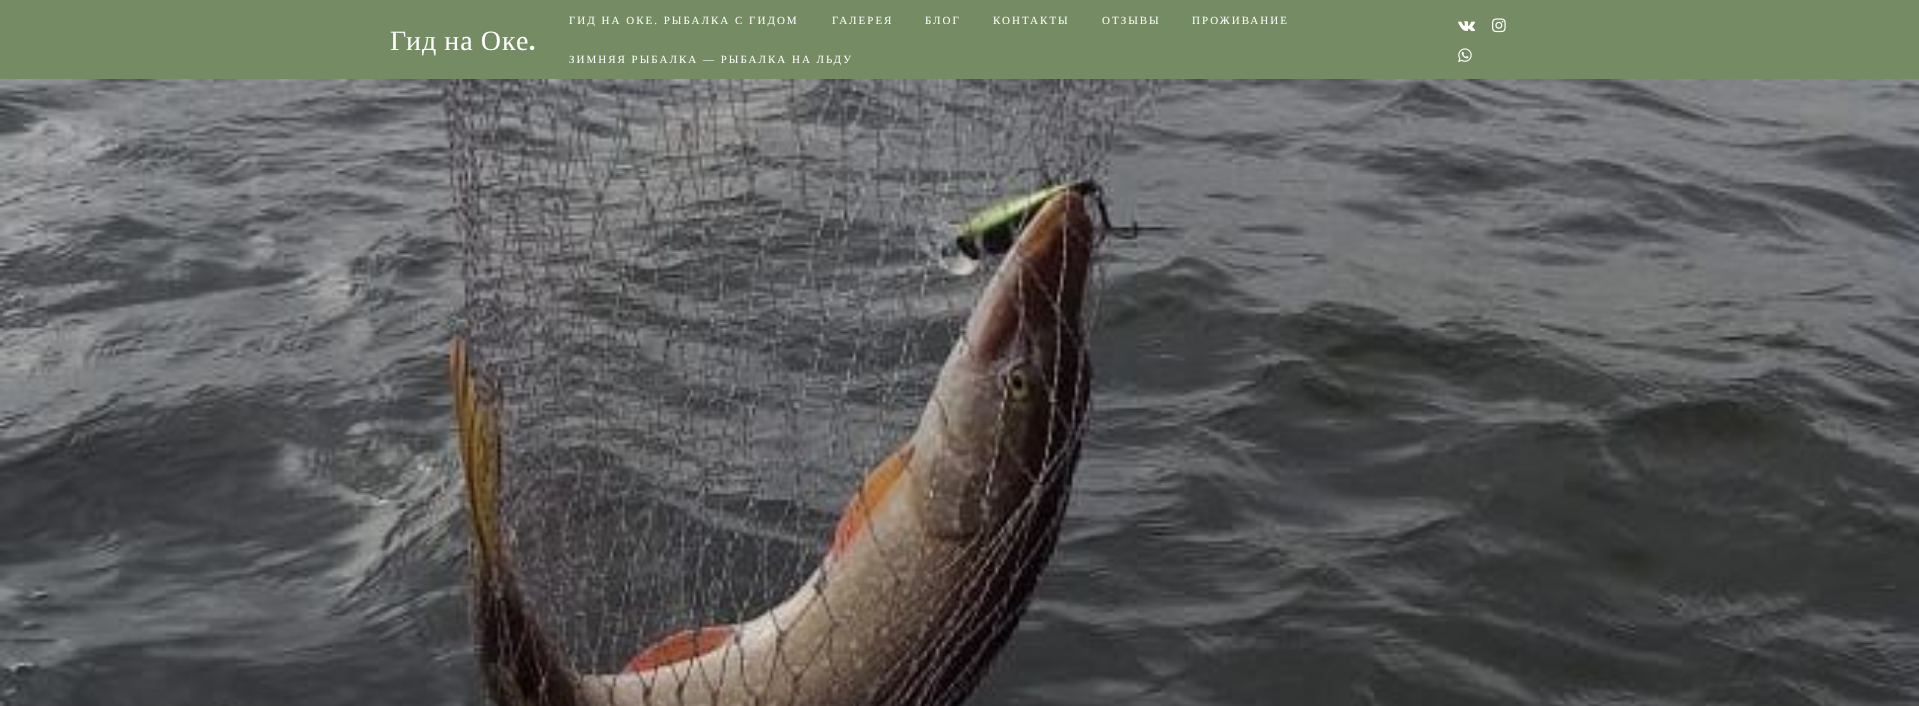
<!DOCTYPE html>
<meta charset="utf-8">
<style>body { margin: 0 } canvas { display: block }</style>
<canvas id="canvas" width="1919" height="706"></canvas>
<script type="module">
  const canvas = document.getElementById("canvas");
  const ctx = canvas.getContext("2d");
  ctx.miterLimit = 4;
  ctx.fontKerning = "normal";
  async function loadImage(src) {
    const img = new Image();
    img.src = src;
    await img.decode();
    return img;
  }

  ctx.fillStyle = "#ffffff";
  ctx.fillRect(0, 0, 1919, 706);
  ctx.fillStyle = "#748b64";
  ctx.fillRect(0, 0, 1919, 79);
  ctx.letterSpacing = "1px";
  ctx.wordSpacing = "-1px";
  ctx.font = "28px Liberation Serif";
  ctx.fillStyle = "#ffffff";
  ctx.fillText("Гид на Оке", 390, 50);
  ctx.wordSpacing = "0px";
  ctx.font = "28px Lobster";
  ctx.fillText(".", 529, 50);
  ctx.letterSpacing = "2px";
  ctx.font = "11px Liberation Serif";
  ctx.fillText("ГИД НА ОКЕ. РЫБАЛКА С ГИДОМ", 569, 24);
  ctx.fillText("ГАЛЕРЕЯ", 832, 24);
  ctx.fillText("БЛОГ", 925, 24);
  ctx.fillText("КОНТАКТЫ", 993, 24);
  ctx.fillText("ОТЗЫВЫ", 1102, 24);
  ctx.fillText("ПРОЖИВАНИЕ", 1192, 24);
  ctx.fillText("ЗИМНЯЯ РЫБАЛКА — РЫБАЛКА НА ЛЬДУ", 569, 63);
  ctx.drawImage(await loadImage("img1.png"), 1458, 21, 18, 10);
  ctx.drawImage(await loadImage("img2.png"), 1492, 18, 14, 15);
  ctx.drawImage(await loadImage("img3.png"), 1458, 48, 14, 15);
  ctx.drawImage(await loadImage("img4.png"), 0, 79, 1919, 627);
</script>
